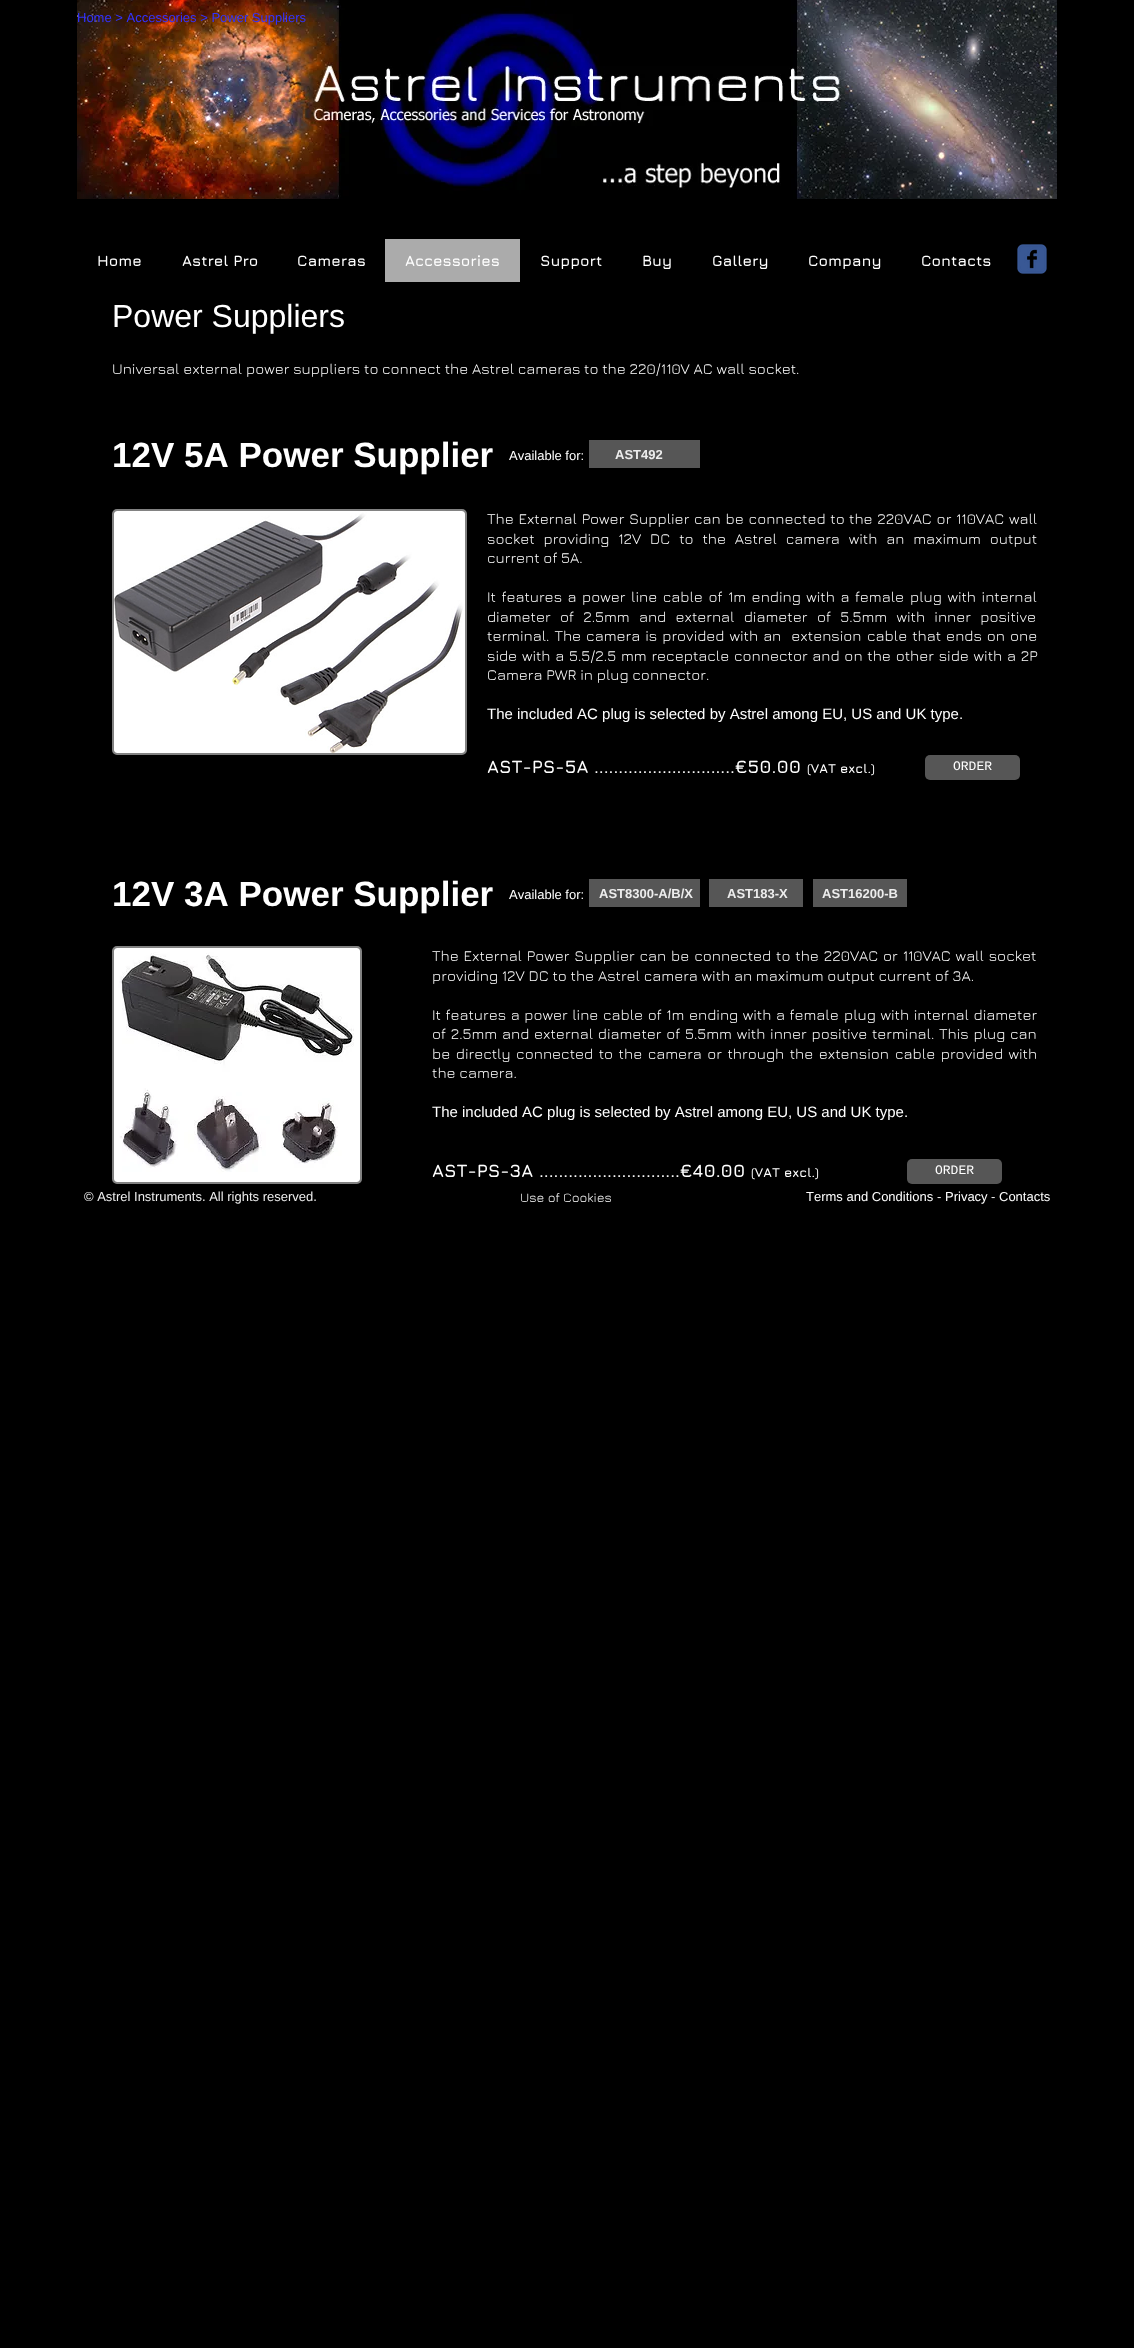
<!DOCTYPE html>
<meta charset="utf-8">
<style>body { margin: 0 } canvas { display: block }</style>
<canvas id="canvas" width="1134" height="2348"></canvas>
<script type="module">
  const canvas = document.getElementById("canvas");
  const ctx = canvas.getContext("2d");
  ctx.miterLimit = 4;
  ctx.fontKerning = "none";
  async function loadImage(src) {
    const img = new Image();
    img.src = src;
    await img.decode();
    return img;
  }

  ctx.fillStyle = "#000000";
  ctx.fillRect(0, 0, 1134, 2348);
  ctx.drawImage(await loadImage("img1.png"), 77, 0, 980, 199);
  ctx.font = "13px Liberation Sans";
  ctx.fillStyle = "#3232ff";
  ctx.fillText("Home > Accessories > Power Suppliers", 77, 22);
  ctx.font = "32px Liberation Sans";
  ctx.fillStyle = "#ffffff";
  ctx.fillText("Power Suppliers", 112, 327);
  ctx.font = "15px Jura";
  ctx.fillText("Universal external power suppliers to", 112, 374);
  ctx.fillText("connect the Astrel cameras to the 220/110V AC wall socket.", 382, 374);
  ctx.font = "bold 35px Liberation Sans";
  ctx.fillText("12V 5A Power Supplier", 112, 467);
  ctx.font = "13px Liberation Sans";
  ctx.fillText("Available for:", 509, 460);
  ctx.fillStyle = "#565656";
  ctx.fillRect(589, 440, 111, 28);
  ctx.font = "bold 13px Liberation Sans";
  ctx.fillStyle = "#ededed";
  ctx.fillText("AST492", 615, 459);
  ctx.fillStyle = "#828282";
  ctx.beginPath();
  ctx.roundRect(113, 510, 353, 244, 4);
  ctx.fill();
  ctx.strokeStyle = "#828282";
  ctx.lineWidth = 2;
  ctx.stroke();
  ctx.drawImage(await loadImage("img2.png"), 114, 511, 351, 242);
  ctx.wordSpacing = "1px";
  ctx.font = "15px Jura";
  ctx.fillStyle = "#ffffff";
  ctx.fillText("The External Power Supplier can be connected to", 487, 524);
  ctx.fillText("the 220VAC or 110VAC wall", 849, 524);
  ctx.wordSpacing = "5.1px";
  ctx.fillText("socket providing 12V DC to the Astrel camera with an maximum output", 487, 544);
  ctx.wordSpacing = "0px";
  ctx.fillText("current of 5A.", 487, 563);
  ctx.wordSpacing = "1.75px";
  ctx.fillText("It features a power line cable of 1m ending with a female", 487, 602);
  ctx.fillText("plug with internal", 910, 602);
  ctx.wordSpacing = "5.5px";
  ctx.fillText("diameter of 2.5mm and external diameter", 487, 622);
  ctx.fillText("of 5.5mm with inner positive", 817, 622);
  ctx.wordSpacing = "1.25px";
  ctx.fillText("terminal. The camera is provided with an  extension", 487, 641);
  ctx.fillText("cable that ends on one", 867, 641);
  ctx.wordSpacing = "1px";
  ctx.fillText("side with a 5.5/2.5 mm receptacle connector and on the other side with a 2P", 487, 661);
  ctx.wordSpacing = "0px";
  ctx.fillText("Camera PWR in plug connector.", 487, 680);
  ctx.font = "15px Liberation Sans";
  ctx.fillText("The included AC plug is selected by Astrel among EU, US and UK type.", 487, 719);
  ctx.font = "bold 18px Jura";
  ctx.fillText("AST-PS-5A", 487, 773);
  ctx.fillText(".............................€50.00", 594, 773);
  ctx.font = "bold 13px Jura";
  ctx.fillText("(VAT excl.)", 807, 773);
  ctx.fillStyle = "#565656";
  ctx.beginPath();
  ctx.roundRect(925, 755, 95, 25, 5);
  ctx.fill();
  ctx.font = "13px Liberation Mono";
  ctx.fillStyle = "#ffffff";
  ctx.fillText("ORDER", 953, 770);
  ctx.font = "bold 35px Liberation Sans";
  ctx.fillText("12V 3A Power Supplier", 112, 906);
  ctx.font = "13px Liberation Sans";
  ctx.fillText("Available for:", 509, 899);
  ctx.fillStyle = "#565656";
  ctx.fillRect(589, 879, 111, 28);
  ctx.font = "bold 13px Liberation Sans";
  ctx.fillStyle = "#ededed";
  ctx.fillText("AST8300-A/B/X", 599, 898);
  ctx.fillStyle = "#565656";
  ctx.fillRect(709, 879, 94, 28);
  ctx.fillStyle = "#ededed";
  ctx.fillText("AST183-X", 727, 898);
  ctx.fillStyle = "#565656";
  ctx.fillRect(813, 879, 94, 28);
  ctx.fillStyle = "#ededed";
  ctx.fillText("AST16200-B", 822, 898);
  ctx.fillStyle = "#828282";
  ctx.beginPath();
  ctx.roundRect(113, 947, 248, 236, 4);
  ctx.fill();
  ctx.stroke();
  ctx.drawImage(await loadImage("img3.png"), 114, 948, 246, 234);
  ctx.wordSpacing = "1.1px";
  ctx.font = "15px Jura";
  ctx.fillStyle = "#ffffff";
  ctx.fillText("The External Power Supplier can be connected", 432, 961);
  ctx.fillText("to the 220VAC or 110VAC wall socket", 776, 961);
  ctx.wordSpacing = "0px";
  ctx.fillText("providing 12V DC to the Astrel camera with an maximum output current of 3A.", 432, 981);
  ctx.wordSpacing = "0.8px";
  ctx.fillText("It features a power line cable of 1m ending with a female", 432, 1020);
  ctx.fillText("plug with internal diameter", 844, 1020);
  ctx.wordSpacing = "1px";
  ctx.fillText("of 2.5mm and external diameter of 5.5mm with inner positive terminal.", 432, 1039);
  ctx.fillText("This plug can", 939, 1039);
  ctx.wordSpacing = "1.75px";
  ctx.fillText("be directly connected to the camera or through the extension", 432, 1059);
  ctx.fillText("cable provided with", 895, 1059);
  ctx.wordSpacing = "0px";
  ctx.fillText("the camera.", 432, 1078);
  ctx.font = "15px Liberation Sans";
  ctx.fillText("The included AC plug is selected by Astrel among EU, US and UK type.", 432, 1117);
  ctx.font = "bold 18px Jura";
  ctx.fillText("AST-PS-3A", 432, 1177);
  ctx.fillText(".............................€40.00", 539, 1177);
  ctx.font = "bold 13px Jura";
  ctx.fillText("(VAT excl.)", 751, 1177);
  ctx.fillStyle = "#565656";
  ctx.beginPath();
  ctx.roundRect(907, 1159, 95, 25, 5);
  ctx.fill();
  ctx.font = "13px Liberation Mono";
  ctx.fillStyle = "#ffffff";
  ctx.fillText("ORDER", 935, 1174);
  ctx.font = "bold 15px Jura";
  ctx.fillText("Home", 97, 266);
  ctx.fillText("Astrel Pro", 182, 266);
  ctx.fillText("Cameras", 297, 266);
  ctx.fillStyle = "#ababab";
  ctx.fillRect(385, 239, 135, 43);
  ctx.fillStyle = "#ffffff";
  ctx.fillText("Accessories", 405, 266);
  ctx.fillText("Support", 540, 266);
  ctx.fillText("Buy", 642, 266);
  ctx.fillText("Gallery", 712, 266);
  ctx.fillText("Company", 808, 266);
  ctx.fillText("Contacts", 921, 266);
  ctx.drawImage(await loadImage("img4.png"), 1017, 244, 30, 30);
  ctx.font = "13px Liberation Sans";
  ctx.fillStyle = "#ededed";
  ctx.fillText("© Astrel Instruments. All rights reserved.", 84, 1201);
  ctx.font = "13px Jura";
  ctx.fillStyle = "#ffffff";
  ctx.fillText("Use of Cookies", 520, 1202);
  ctx.font = "13px Liberation Sans";
  ctx.fillText("Terms and Conditions", 806, 1201);
  ctx.fillStyle = "#ededed";
  ctx.fillText("-", 937, 1201);
  ctx.fillStyle = "#ffffff";
  ctx.fillText("Privacy", 945, 1201);
  ctx.fillStyle = "#ededed";
  ctx.fillText("-", 991, 1201);
  ctx.fillStyle = "#ffffff";
  ctx.fillText("Contacts", 999, 1201);
</script>
